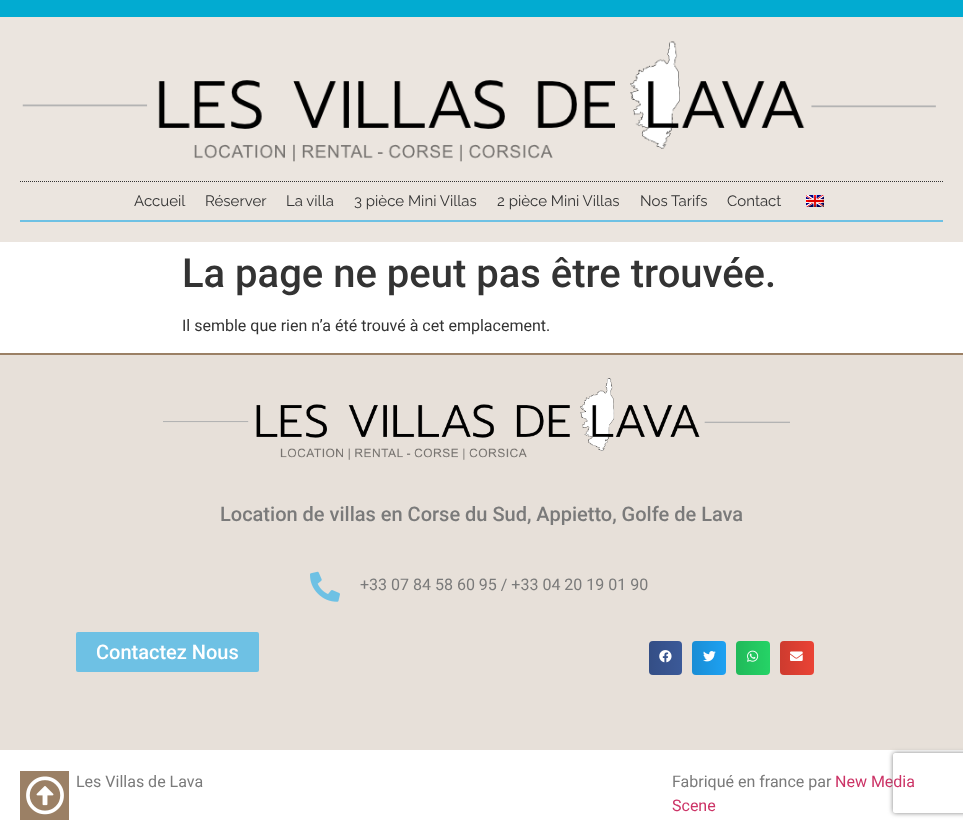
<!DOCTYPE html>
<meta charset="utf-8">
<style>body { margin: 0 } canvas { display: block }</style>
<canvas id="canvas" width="963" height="827"></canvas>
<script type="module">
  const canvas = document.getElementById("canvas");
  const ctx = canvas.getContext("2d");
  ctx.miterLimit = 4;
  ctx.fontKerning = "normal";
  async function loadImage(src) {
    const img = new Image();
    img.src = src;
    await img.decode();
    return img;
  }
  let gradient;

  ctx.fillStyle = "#ffffff";
  ctx.fillRect(0, 0, 963, 827);
  ctx.fillStyle = "#02abd1";
  ctx.fillRect(0, 0, 963, 17);
  ctx.fillStyle = "#ebe5df";
  ctx.fillRect(0, 17, 963, 225);
  ctx.fillStyle = "#6ec1e4";
  ctx.fillRect(20, 220, 923, 2);
  ctx.drawImage(await loadImage("img1.png"), 22, 41, 914, 121);
  ctx.beginPath();
  ctx.moveTo(20, 181.5);
  ctx.lineTo(943, 181.5);
  ctx.strokeStyle = "#333333";
  ctx.setLineDash([1, 1]);
  ctx.stroke();
  ctx.font = "15px Raleway";
  ctx.fillStyle = "#333333";
  ctx.fillText("Accueil", 134, 206);
  ctx.fillText("Réserver", 205, 206);
  ctx.fillText("La villa", 286, 206);
  ctx.fillText("3 pièce Mini Villas", 354, 206);
  ctx.fillText("2 pièce Mini Villas", 497, 206);
  ctx.fillText("Nos Tarifs", 640, 206);
  ctx.fillText("Contact", 727, 206);
  ctx.drawImage(await loadImage("img2.png"), 806, 195, 18, 12);
  ctx.font = "500 40px Roboto";
  ctx.fillText("La page ne peut pas être trouvée.", 182, 287);
  ctx.font = "16px Roboto";
  ctx.fillText("Il semble que rien n’a été trouvé à cet emplacement.", 182, 331);
  ctx.fillStyle = "#e7e0d9";
  ctx.fillRect(0, 355, 963, 395);
  ctx.fillStyle = "#9b8065";
  ctx.fillRect(0, 353, 963, 2);
  ctx.drawImage(await loadImage("img3.png"), 163, 378, 627, 82);
  ctx.font = "500 20px Roboto";
  ctx.fillStyle = "#7a7a7a";
  ctx.fillText("Location de villas en Corse du Sud, Appietto, Golfe de Lava", 220, 521);
  ctx.drawImage(await loadImage("img4.png"), 310, 571, 30, 31);
  ctx.font = "16px Roboto";
  ctx.fillText("+33 07 84 58 60 95 / +33 04 20 19 01 90", 360, 590);
  ctx.fillStyle = "#6ec1e4";
  ctx.beginPath();
  ctx.roundRect(76, 632, 183, 40, 2);
  ctx.fill();
  ctx.font = "500 20px Roboto";
  ctx.fillStyle = "#ffffff";
  ctx.fillText("Contactez Nous", 96, 659);
  ctx.fillStyle = "#3b5998";
  ctx.beginPath();
  ctx.roundRect(649, 641, 33, 34, 4);
  ctx.fill();
  gradient = ctx.createLinearGradient(649, 658, 682, 658);
  gradient.addColorStop(0, "rgba(0, 0, 0, 0.12)");
  gradient.addColorStop(1, "rgba(0, 0, 0, 0)");
  ctx.fillStyle = gradient;
  ctx.beginPath();
  ctx.roundRect(649, 641, 33, 34, 4);
  ctx.fill();
  ctx.drawImage(await loadImage("img5.png"), 659, 650, 13, 13);
  ctx.fillStyle = "#1da1f2";
  ctx.beginPath();
  ctx.roundRect(692, 641, 34, 34, 4);
  ctx.fill();
  gradient = ctx.createLinearGradient(692, 658, 726, 658);
  gradient.addColorStop(0, "rgba(0, 0, 0, 0.12)");
  gradient.addColorStop(1, "rgba(0, 0, 0, 0)");
  ctx.fillStyle = gradient;
  ctx.beginPath();
  ctx.roundRect(692, 641, 34, 34, 4);
  ctx.fill();
  ctx.drawImage(await loadImage("img6.png"), 703, 651, 13, 11);
  ctx.fillStyle = "#25d366";
  ctx.beginPath();
  ctx.roundRect(736, 641, 34, 34, 4);
  ctx.fill();
  gradient = ctx.createLinearGradient(736, 658, 770, 658);
  gradient.addColorStop(0, "rgba(0, 0, 0, 0.12)");
  gradient.addColorStop(1, "rgba(0, 0, 0, 0)");
  ctx.fillStyle = gradient;
  ctx.beginPath();
  ctx.roundRect(736, 641, 34, 34, 4);
  ctx.fill();
  ctx.drawImage(await loadImage("img7.png"), 747, 650, 12, 12);
  ctx.fillStyle = "#ea4335";
  ctx.beginPath();
  ctx.roundRect(780, 641, 34, 34, 4);
  ctx.fill();
  gradient = ctx.createLinearGradient(780, 658, 814, 658);
  gradient.addColorStop(0, "rgba(0, 0, 0, 0.12)");
  gradient.addColorStop(1, "rgba(0, 0, 0, 0)");
  ctx.fillStyle = gradient;
  ctx.beginPath();
  ctx.roundRect(780, 641, 34, 34, 4);
  ctx.fill();
  ctx.drawImage(await loadImage("img8.png"), 790, 651, 13, 10);
  ctx.fillStyle = "#9b8065";
  ctx.fillRect(20, 771, 49, 49);
  ctx.drawImage(await loadImage("img9.png"), 26, 776, 38, 39);
  ctx.font = "16px Roboto";
  ctx.fillStyle = "#7a7a7a";
  ctx.fillText("Les Villas de Lava", 76, 787);
  ctx.fillText("Fabriqué en france par", 672, 787);
  ctx.fillStyle = "#cc3366";
  ctx.fillText("New Media", 835, 787);
  ctx.fillText("Scene", 672, 811);
  ctx.save();
  ctx.beginPath();
  ctx.moveTo(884, 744);
  ctx.lineTo(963, 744);
  ctx.lineTo(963, 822);
  ctx.lineTo(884, 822);
  ctx.closePath();
  ctx.moveTo(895, 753);
  ctx.lineTo(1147, 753);
  ctx.bezierCurveTo(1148, 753, 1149, 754, 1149, 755);
  ctx.lineTo(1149, 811);
  ctx.bezierCurveTo(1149, 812, 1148, 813, 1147, 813);
  ctx.lineTo(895, 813);
  ctx.bezierCurveTo(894, 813, 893, 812, 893, 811);
  ctx.lineTo(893, 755);
  ctx.bezierCurveTo(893, 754, 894, 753, 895, 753);
  ctx.closePath();
  ctx.clip("evenodd");
  ctx.fillStyle = "#808080";
  ctx.filter = "blur(2.5px)";
  ctx.beginPath();
  ctx.roundRect(893, 753, 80, 60, 2);
  ctx.fill();
  ctx.filter = "none";
  ctx.restore();
</script>
